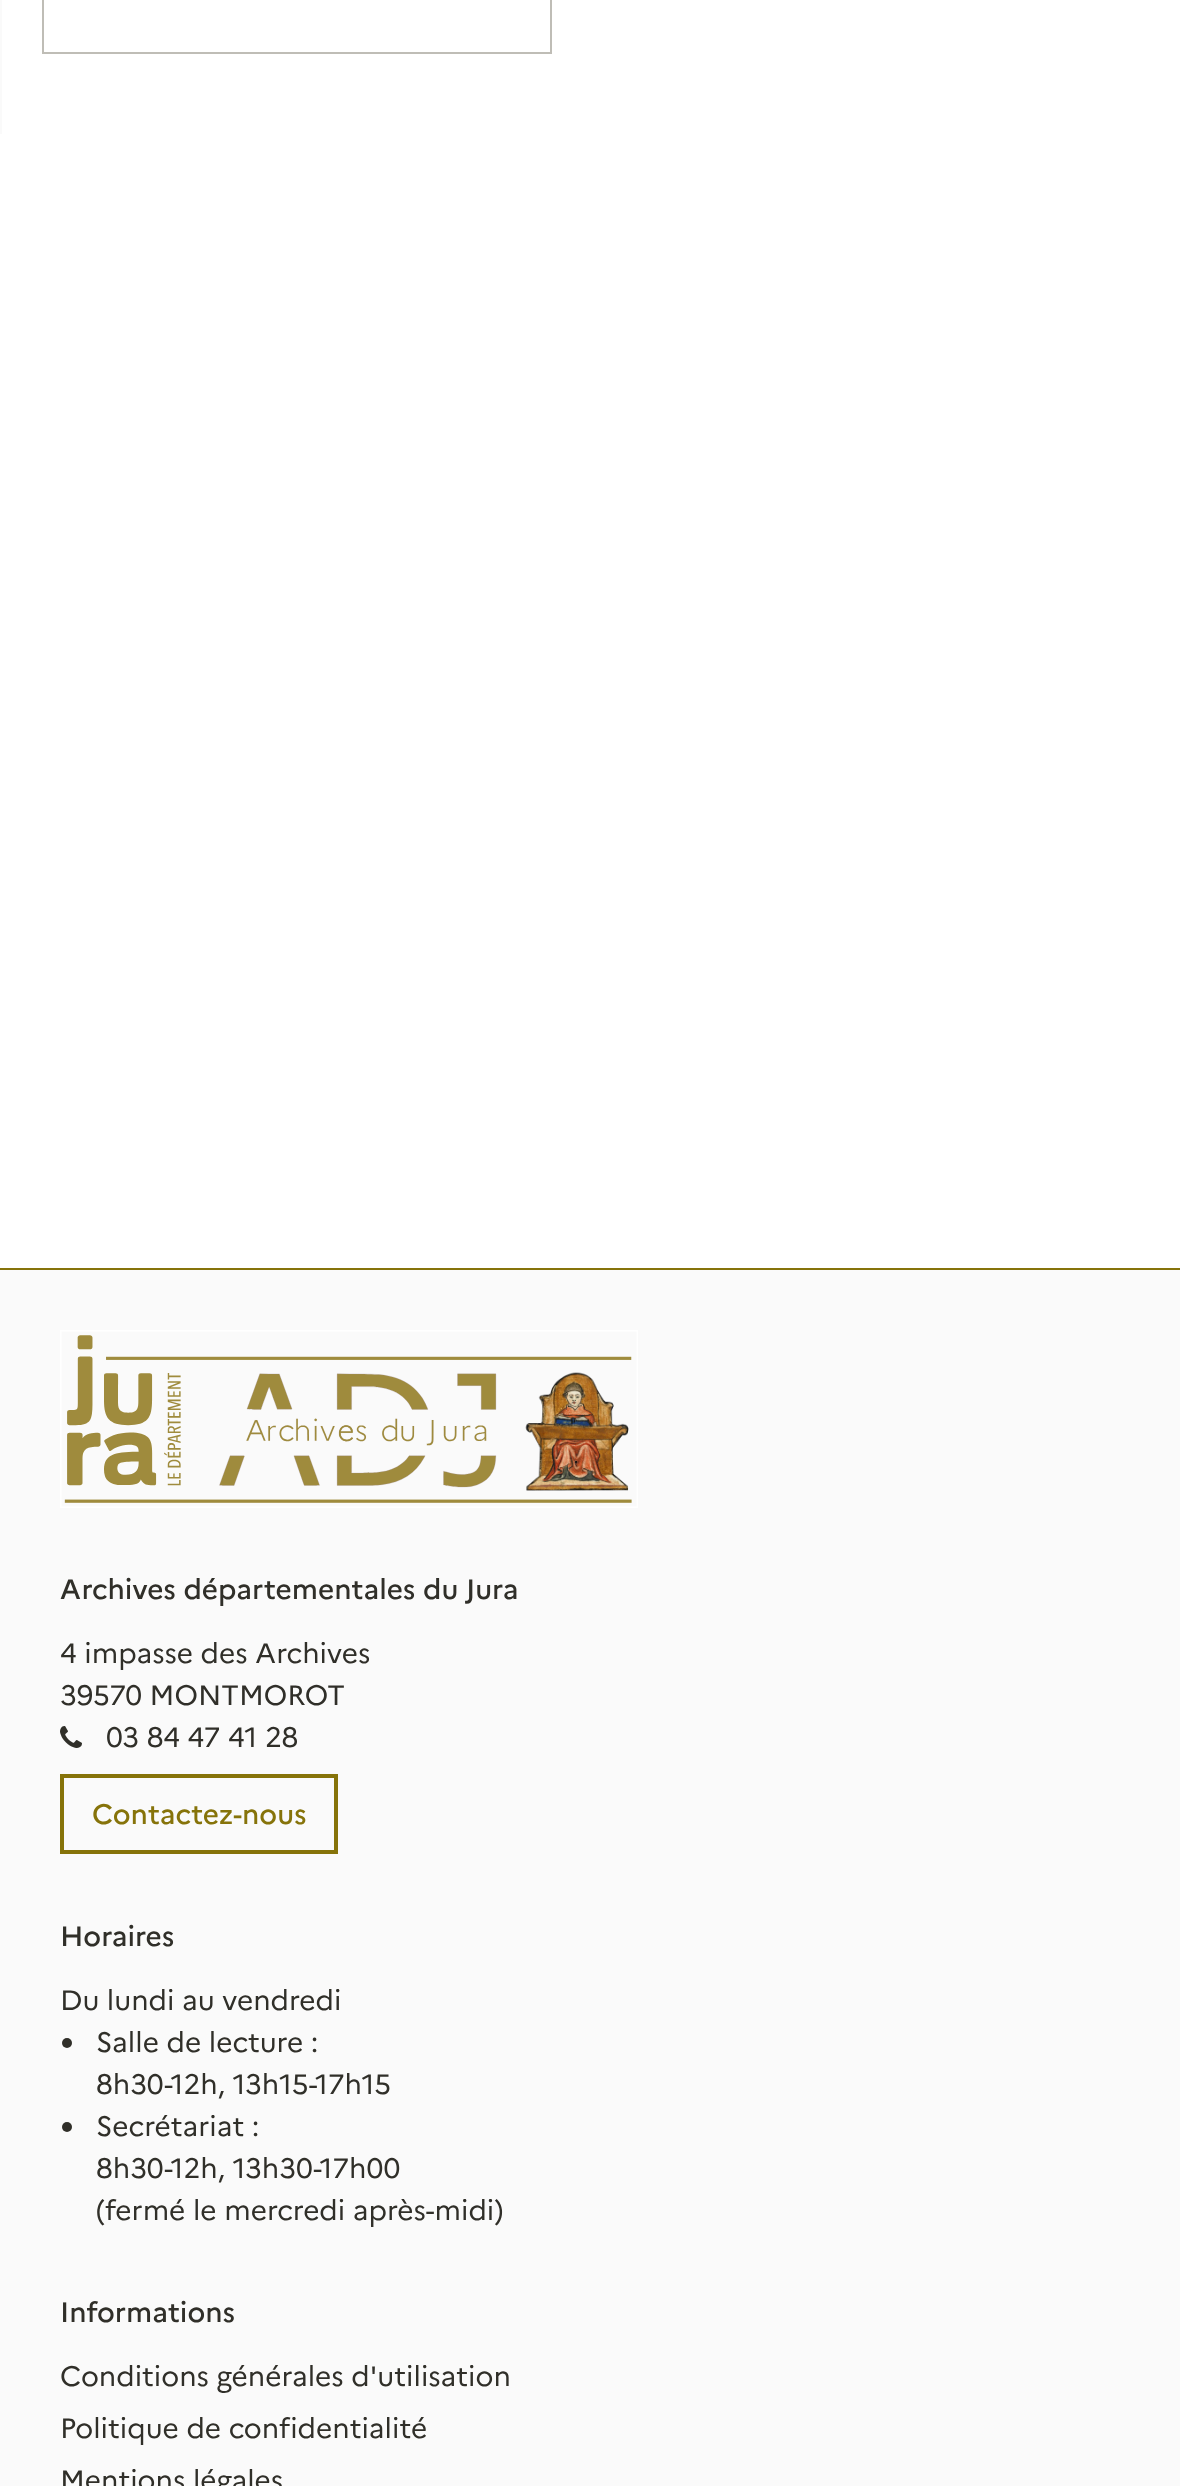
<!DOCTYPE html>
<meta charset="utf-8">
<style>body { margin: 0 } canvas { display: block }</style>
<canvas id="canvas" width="1180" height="2486"></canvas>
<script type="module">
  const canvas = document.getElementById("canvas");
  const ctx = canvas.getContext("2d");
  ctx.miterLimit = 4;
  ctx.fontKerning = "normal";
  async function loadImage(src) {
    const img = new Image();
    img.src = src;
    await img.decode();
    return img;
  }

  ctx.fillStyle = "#ffffff";
  ctx.fillRect(0, 0, 1180, 2486);
  ctx.fillStyle = "#fafafa";
  ctx.fillRect(0, 0, 2, 134);
  ctx.strokeStyle = "#bfbdb6";
  ctx.lineWidth = 2;
  ctx.strokeRect(43, -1, 508, 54);
  ctx.fillRect(0, 1270, 1180, 1216);
  ctx.fillStyle = "#86730a";
  ctx.fillRect(0, 1268, 1180, 2);
  ctx.drawImage(await loadImage("img1.png"), 60, 1330, 578, 178);
  ctx.font = "500 28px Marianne";
  ctx.fillStyle = "#302f29";
  ctx.fillText("Archives départementales du Jura", 60, 1599);
  ctx.font = "28px Marianne";
  ctx.fillText("4 impasse des Archives", 60, 1663);
  ctx.fillText("39570 MONTMOROT", 60, 1705);
  ctx.drawImage(await loadImage("img2.png"), 60, 1726, 22, 22);
  ctx.fillText("03 84 47 41 28", 106, 1747);
  ctx.strokeStyle = "#86730a";
  ctx.lineWidth = 4;
  ctx.strokeRect(62, 1776, 274, 76);
  ctx.font = "500 28px Marianne";
  ctx.fillStyle = "#86730a";
  ctx.fillText("Contactez-nous", 92, 1824);
  ctx.fillStyle = "#302f29";
  ctx.fillText("Horaires", 60, 1946);
  ctx.font = "28px Marianne";
  ctx.fillText("Du lundi au vendredi", 60, 2010);
  ctx.beginPath();
  ctx.arc(67, 2043, 5, 0, Math.PI * 2);
  ctx.fill();
  ctx.fillText("Salle de lecture :", 96, 2052);
  ctx.fillText("8h30-12h, 13h15-17h15", 96, 2094);
  ctx.beginPath();
  ctx.arc(67, 2127, 5, 0, Math.PI * 2);
  ctx.fill();
  ctx.fillText("Secrétariat :", 96, 2136);
  ctx.fillText("8h30-12h, 13h30-17h00", 96, 2178);
  ctx.fillText("(fermé le mercredi après-midi)", 96, 2220);
  ctx.font = "500 28px Marianne";
  ctx.fillText("Informations", 60, 2322);
  ctx.font = "28px Marianne";
  ctx.fillText("Conditions générales d'utilisation", 60, 2386);
  ctx.fillText("Politique de confidentialité", 60, 2438);
  ctx.fillText("Mentions légales", 60, 2490);
</script>
